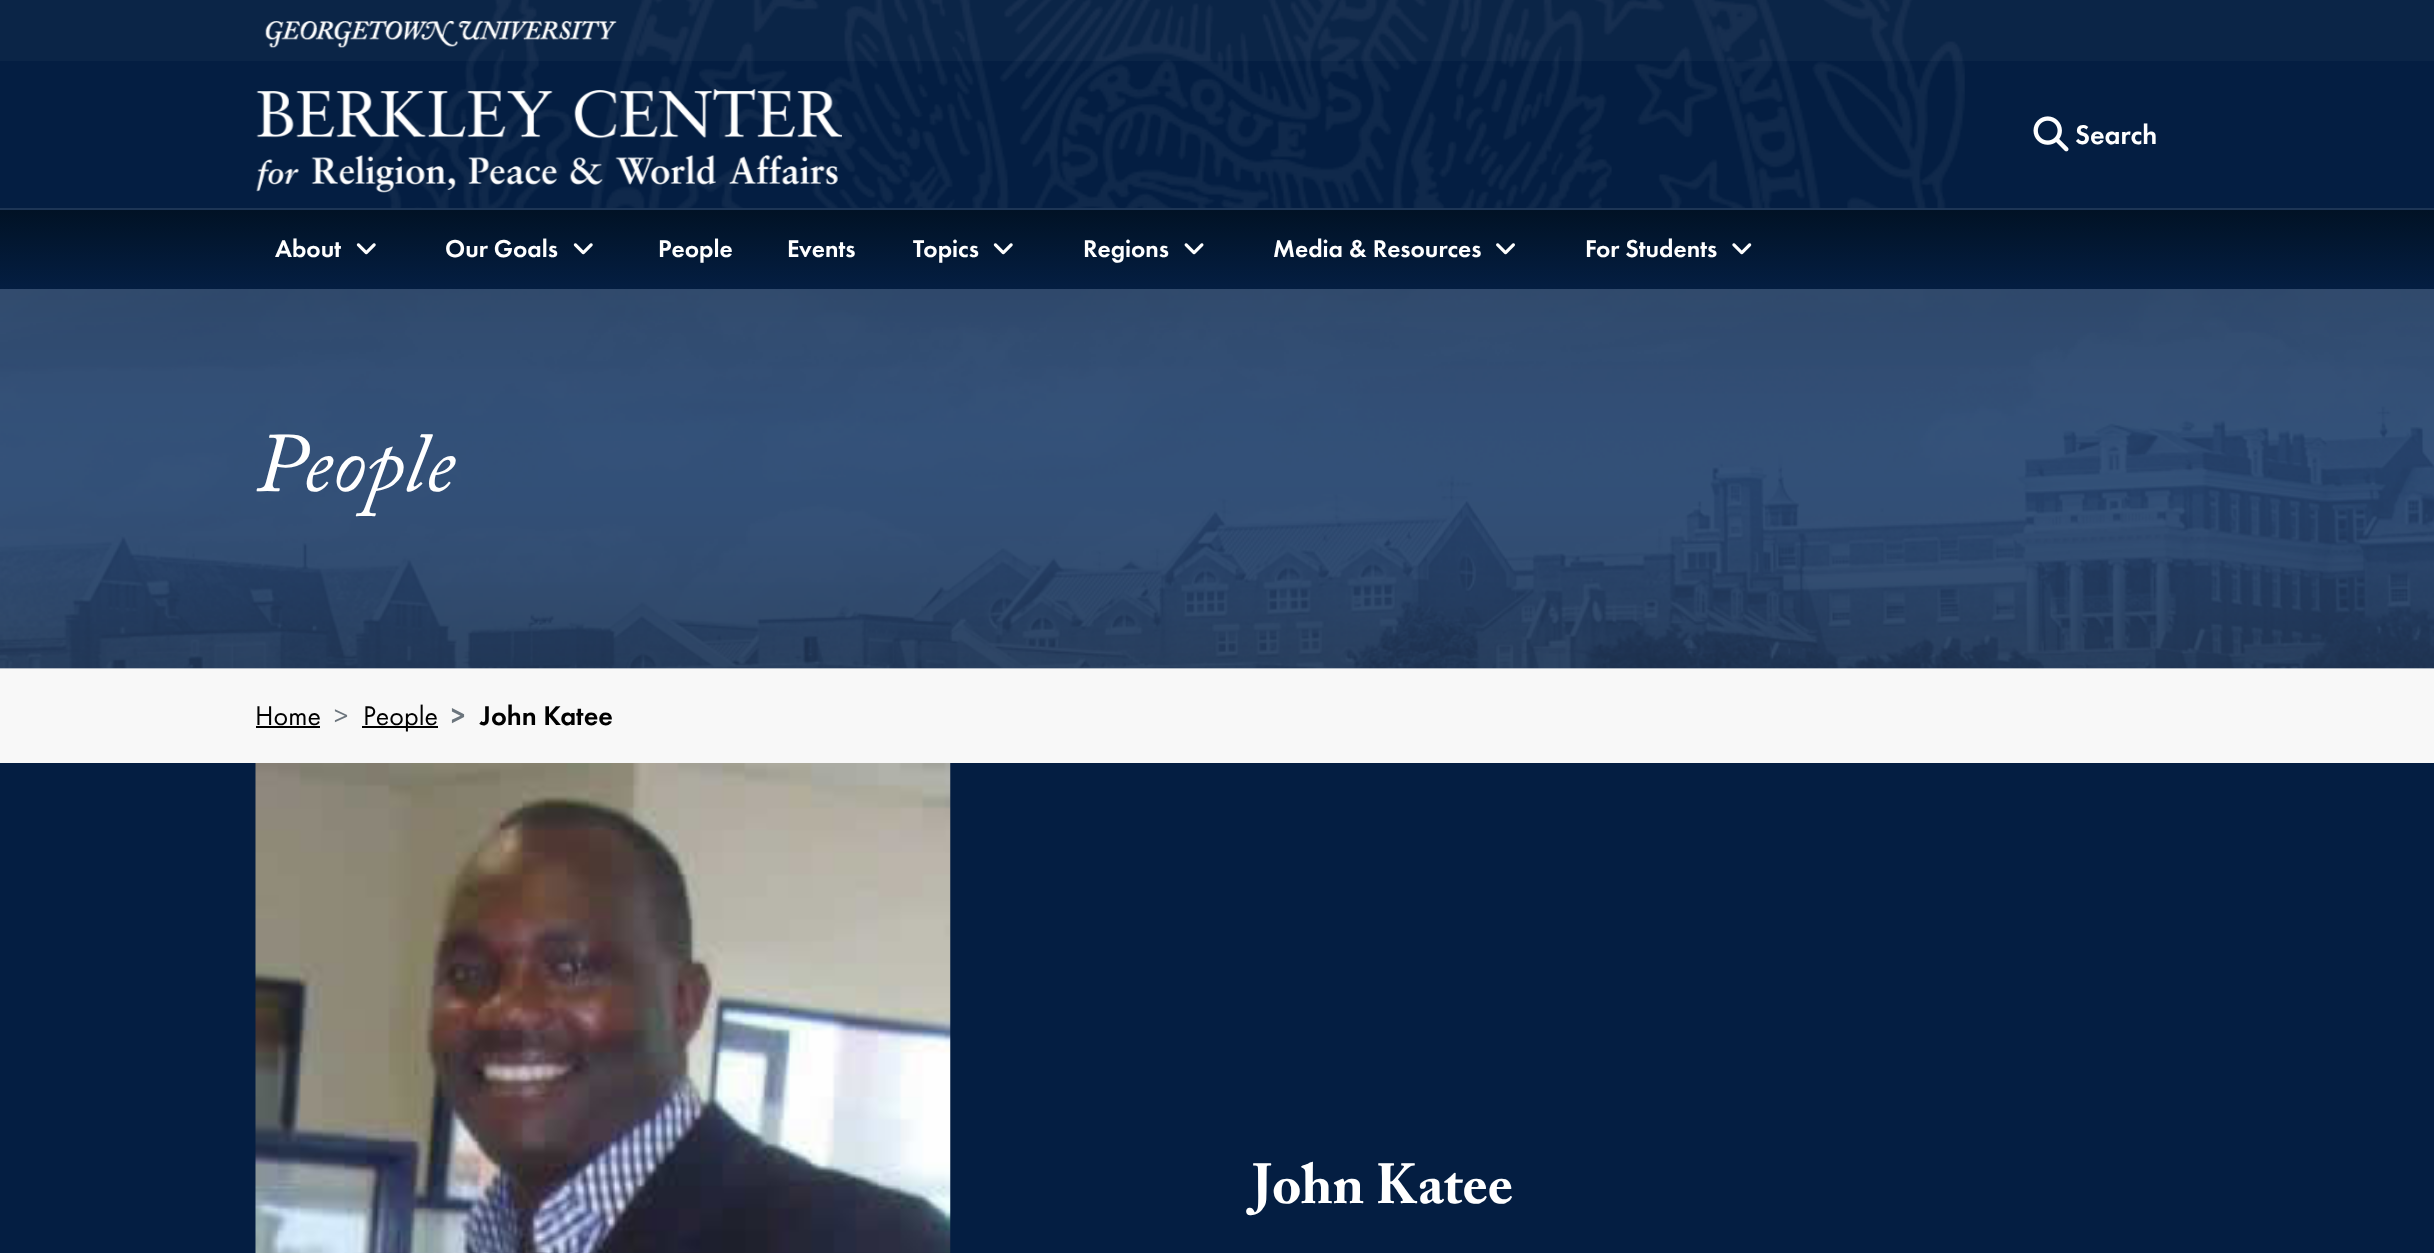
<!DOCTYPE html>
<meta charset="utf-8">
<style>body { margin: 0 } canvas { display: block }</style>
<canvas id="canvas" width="2434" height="1253"></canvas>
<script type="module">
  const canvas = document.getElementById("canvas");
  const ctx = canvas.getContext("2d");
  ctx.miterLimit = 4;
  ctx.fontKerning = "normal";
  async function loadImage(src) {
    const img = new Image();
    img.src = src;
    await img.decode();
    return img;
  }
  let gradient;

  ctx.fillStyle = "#f8f8f8";
  ctx.fillRect(0, 0, 2434, 1253);
  ctx.fillStyle = "#041e42";
  ctx.fillRect(0, 0, 2434, 208);
  ctx.drawImage(await loadImage("img1.png"), 366, 0, 1599, 208);
  ctx.fillStyle = "rgba(255, 255, 255, 0.03)";
  ctx.fillRect(0, 0, 2434, 61);
  ctx.drawImage(await loadImage("img2.png"), 265, 21, 352, 27);
  ctx.drawImage(await loadImage("img3.png"), 256, 89, 586, 104);
  ctx.drawImage(await loadImage("img4.png"), 2033, 116, 36, 36);
  ctx.font = "500 28px Futura PT";
  ctx.fillStyle = "#ffffff";
  ctx.fillText("Search", 2075, 144);
  gradient = ctx.createLinearGradient(1217, 210, 1217, 289);
  gradient.addColorStop(0, "#011225");
  gradient.addColorStop(1, "#041e42");
  ctx.fillStyle = gradient;
  ctx.fillRect(0, 210, 2434, 79);
  ctx.fillStyle = "#1d3555";
  ctx.fillRect(0, 208, 2434, 2);
  ctx.font = "500 25.25px Futura PT";
  ctx.fillStyle = "#ffffff";
  ctx.fillText("About", 275, 257);
  ctx.drawImage(await loadImage("img5.png"), 356, 243, 20, 12);
  ctx.fillText("Our Goals", 445, 257);
  ctx.drawImage(await loadImage("img5.png"), 573, 243, 20, 12);
  ctx.fillText("People", 658, 257);
  ctx.fillText("Events", 787, 257);
  ctx.fillText("Topics", 913, 257);
  ctx.drawImage(await loadImage("img5.png"), 993, 243, 20, 12);
  ctx.fillText("Regions", 1083, 257);
  ctx.drawImage(await loadImage("img6.png"), 1184, 243, 20, 12);
  ctx.fillText("Media & Resources", 1273, 257);
  ctx.drawImage(await loadImage("img7.png"), 1496, 243, 19, 12);
  ctx.fillText("For Students", 1585, 257);
  ctx.drawImage(await loadImage("img8.png"), 1732, 243, 20, 12);
  ctx.fillStyle = "#dee2e6";
  ctx.fillRect(0, 668, 2434, 1);
  ctx.drawImage(await loadImage("img9.png"), 0, 289, 2434, 380);
  ctx.font = "italic 84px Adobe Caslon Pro";
  ctx.fillStyle = "#ffffff";
  ctx.fillText("People", 255, 491);
  ctx.font = "28px Futura PT";
  ctx.fillStyle = "#000000";
  ctx.fillText("Home", 255, 725);
  ctx.fillRect(256, 726, 64, 2);
  ctx.fillStyle = "#6c757d";
  ctx.fillText(">", 334, 725);
  ctx.fillStyle = "#000000";
  ctx.fillRect(362, 726, 76, 2);
  ctx.fillText("People", 363, 725);
  ctx.font = "500 28px Futura PT";
  ctx.fillStyle = "#6c757d";
  ctx.fillText(">", 451, 725);
  ctx.fillStyle = "#000000";
  ctx.fillText("John Katee", 480, 725);
  ctx.fillStyle = "#041e42";
  ctx.fillRect(0, 763, 2434, 490);
  ctx.drawImage(await loadImage("img10.png"), 255, 763, 696, 490);
  ctx.font = "bold 56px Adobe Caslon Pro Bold";
  ctx.fillStyle = "#ffffff";
  ctx.fillText("John Katee", 1252, 1203);
</script>
